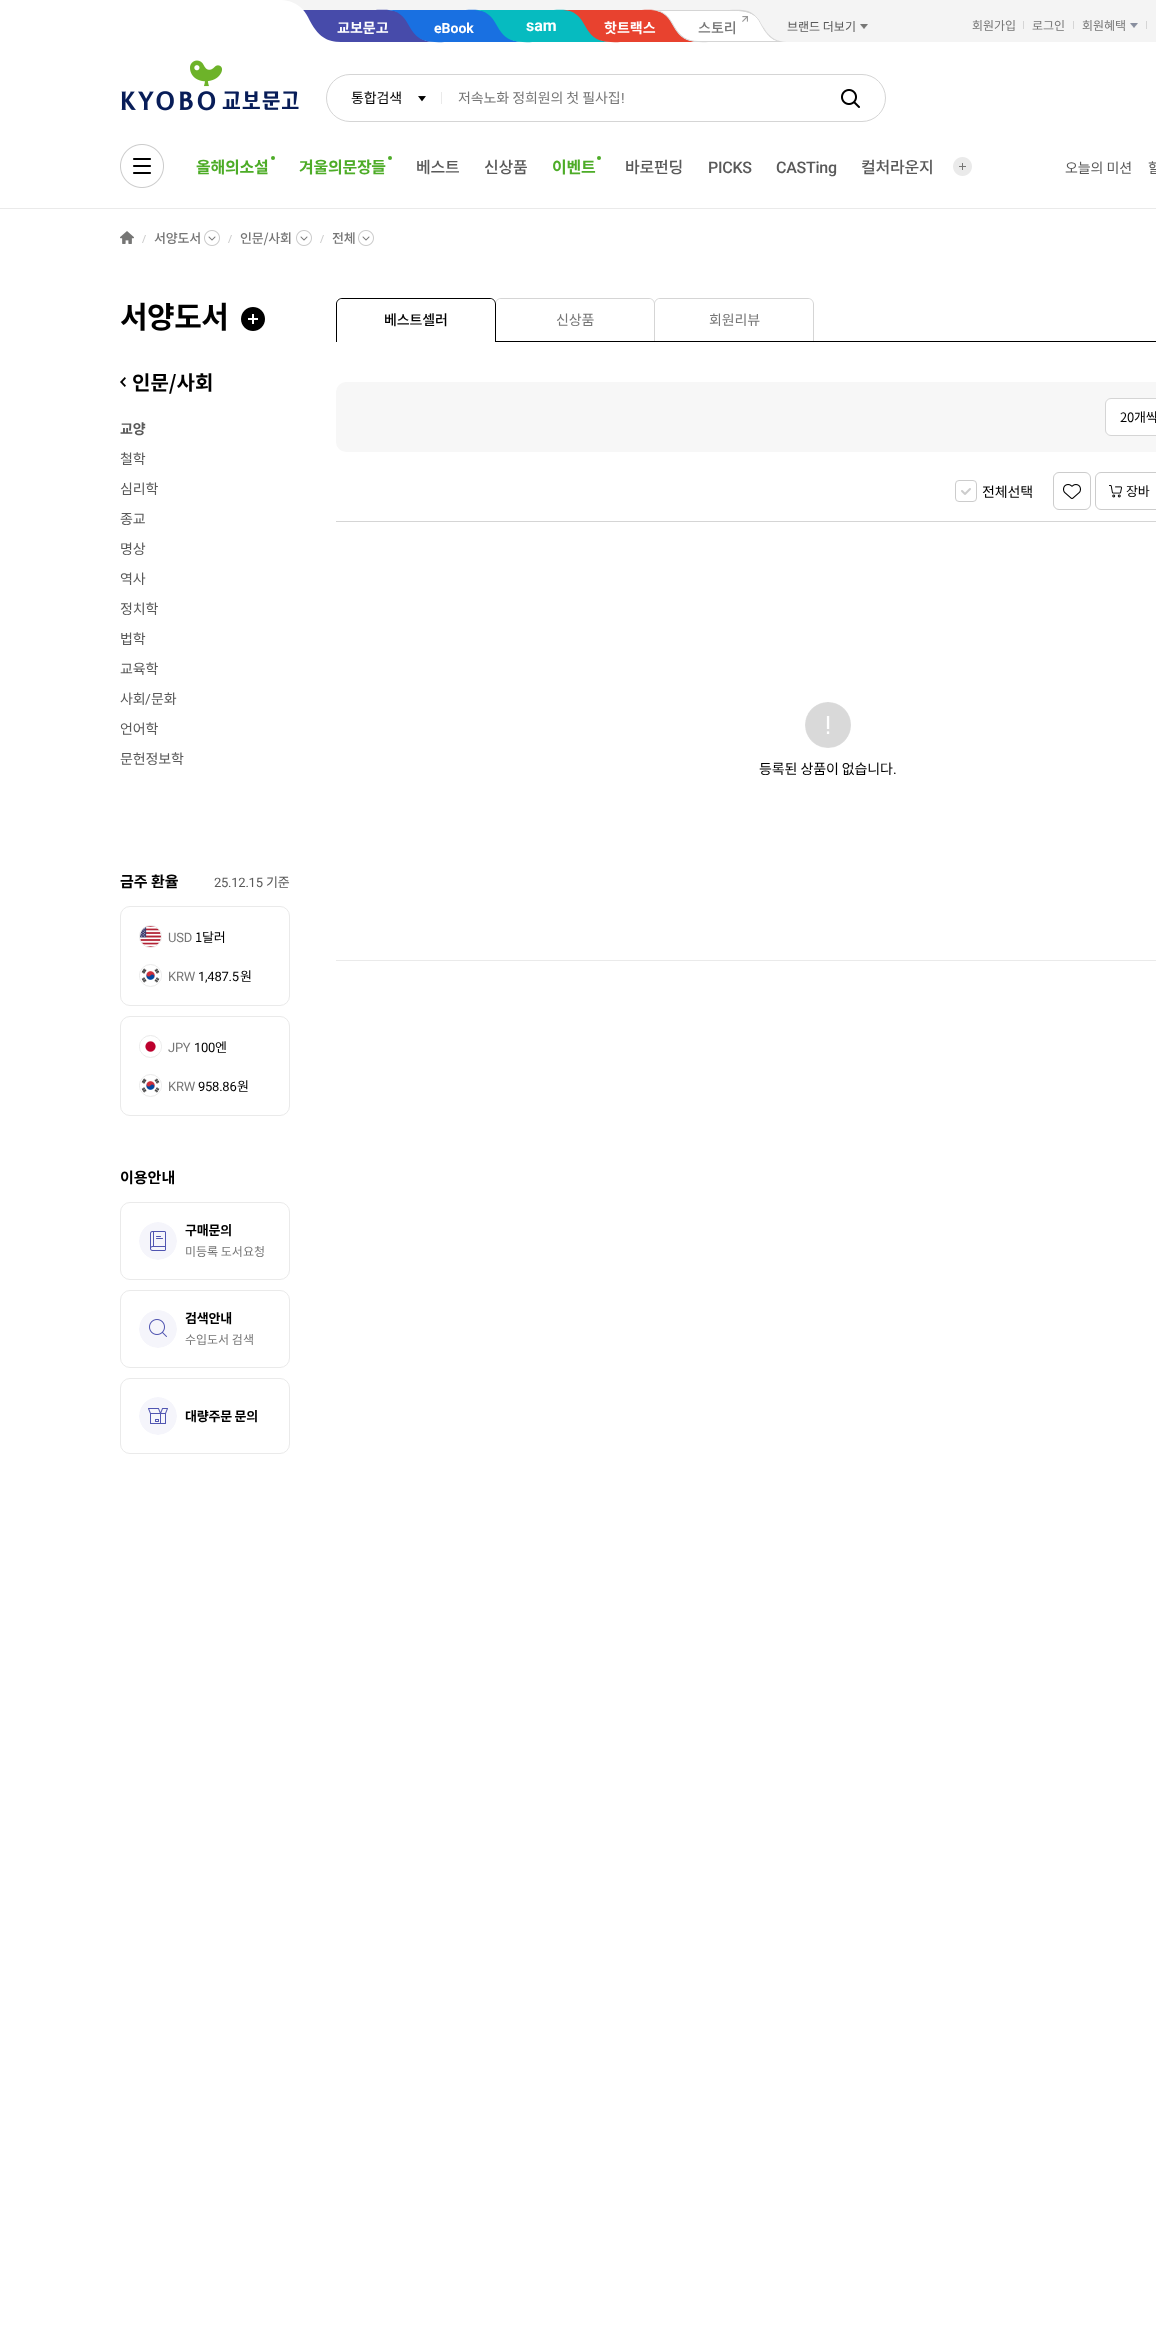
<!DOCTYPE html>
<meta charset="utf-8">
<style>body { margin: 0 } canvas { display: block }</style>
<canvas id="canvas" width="1156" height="2332"></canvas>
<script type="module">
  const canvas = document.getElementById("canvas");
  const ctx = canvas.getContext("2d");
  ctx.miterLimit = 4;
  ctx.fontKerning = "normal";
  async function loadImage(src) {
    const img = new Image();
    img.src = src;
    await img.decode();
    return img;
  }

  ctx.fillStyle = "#ffffff";
  ctx.fillRect(0, 0, 1156, 2332);
  ctx.fillStyle = "#eaeaea";
  ctx.fillRect(0, 208, 1156, 1);
  ctx.fillStyle = "#f4f4f4";
  ctx.fillRect(282, 0, 874, 42);
  ctx.fillStyle = "#474baa";
  ctx.beginPath();
  ctx.moveTo(303, 10);
  ctx.lineTo(303, 42);
  ctx.lineTo(435, 42);
  ctx.bezierCurveTo(410, 42, 415, 19, 398, 12);
  ctx.bezierCurveTo(391, 9, 380, 10, 373, 10);
  ctx.closePath();
  ctx.fill();
  ctx.font = "bold 14px Noto Sans KR";
  ctx.fillStyle = "#ffffff";
  ctx.fillText("교보문고", 337, 33);
  ctx.drawImage(await loadImage("img1.png"), 120, 0, 220, 42);
  ctx.fillStyle = "#1970e1";
  ctx.beginPath();
  ctx.moveTo(523, 42);
  ctx.lineTo(449, 42);
  ctx.bezierCurveTo(442, 42, 430, 43, 423, 40);
  ctx.bezierCurveTo(406, 33, 410, 11, 387, 10);
  ctx.lineTo(460, 10);
  ctx.bezierCurveTo(467, 10, 477, 9, 484, 11);
  ctx.bezierCurveTo(493, 15, 495, 21, 500, 28);
  ctx.bezierCurveTo(505, 37, 513, 42, 523, 42);
  ctx.closePath();
  ctx.fill();
  ctx.font = "bold 14px Roboto";
  ctx.fillStyle = "#ffffff";
  ctx.fillText("eBook", 434, 33);
  ctx.fillStyle = "#06bbc0";
  ctx.beginPath();
  ctx.moveTo(611, 42);
  ctx.lineTo(537, 42);
  ctx.bezierCurveTo(530, 42, 518, 43, 511, 40);
  ctx.bezierCurveTo(494, 33, 498, 11, 475, 10);
  ctx.lineTo(548, 10);
  ctx.bezierCurveTo(555, 10, 565, 9, 572, 11);
  ctx.bezierCurveTo(581, 15, 583, 21, 588, 28);
  ctx.bezierCurveTo(593, 37, 601, 42, 611, 42);
  ctx.closePath();
  ctx.fill();
  ctx.font = "bold 16px Roboto";
  ctx.fillStyle = "#ffffff";
  ctx.fillText("sam", 526, 31);
  ctx.fillStyle = "#e8422f";
  ctx.beginPath();
  ctx.moveTo(699, 42);
  ctx.lineTo(625, 42);
  ctx.bezierCurveTo(618, 42, 606, 43, 599, 40);
  ctx.bezierCurveTo(582, 33, 586, 11, 563, 10);
  ctx.lineTo(636, 10);
  ctx.bezierCurveTo(643, 10, 653, 9, 660, 11);
  ctx.bezierCurveTo(669, 15, 671, 21, 676, 28);
  ctx.bezierCurveTo(681, 37, 689, 42, 699, 42);
  ctx.closePath();
  ctx.fill();
  ctx.font = "bold 14px Noto Sans KR";
  ctx.fillStyle = "#ffffff";
  ctx.fillText("핫트랙스", 604, 33);
  ctx.fillStyle = "#d5d5d5";
  ctx.beginPath();
  ctx.moveTo(787, 42);
  ctx.lineTo(713, 42);
  ctx.bezierCurveTo(706, 42, 694, 43, 687, 40);
  ctx.bezierCurveTo(670, 33, 674, 11, 651, 10);
  ctx.lineTo(724, 10);
  ctx.bezierCurveTo(731, 10, 741, 9, 748, 11);
  ctx.bezierCurveTo(757, 15, 759, 21, 764, 28);
  ctx.bezierCurveTo(769, 37, 777, 42, 787, 42);
  ctx.closePath();
  ctx.fill();
  ctx.fillStyle = "#ffffff";
  ctx.beginPath();
  ctx.moveTo(773, 39);
  ctx.lineTo(779, 41);
  ctx.lineTo(698, 41);
  ctx.bezierCurveTo(688, 42, 680, 37, 675, 28);
  ctx.bezierCurveTo(671, 21, 668, 15, 661, 12);
  ctx.lineTo(657, 11);
  ctx.lineTo(725, 11);
  ctx.bezierCurveTo(739, 11, 753, 9, 761, 23);
  ctx.bezierCurveTo(764, 29, 767, 35, 773, 39);
  ctx.closePath();
  ctx.fill();
  ctx.save();
  ctx.beginPath();
  ctx.moveTo(787, 42);
  ctx.lineTo(698, 42);
  ctx.bezierCurveTo(695.5, 42, 693, 42, 690.5, 41);
  ctx.bezierCurveTo(688, 40.5, 685.5, 39.5, 683.5, 38.5);
  ctx.bezierCurveTo(679.5, 35.5, 675.5, 30.5, 671.5, 23);
  ctx.bezierCurveTo(669.5, 18.5, 665.5, 14.5, 660.5, 12.5);
  ctx.bezierCurveTo(657.5, 11, 654.5, 10, 651, 10);
  ctx.lineTo(739.5, 10);
  ctx.bezierCurveTo(743, 10, 746, 10.5, 749, 12);
  ctx.bezierCurveTo(751.5, 13, 753.5, 14, 755.5, 16);
  ctx.bezierCurveTo(758, 18, 760, 20.5, 761, 23);
  ctx.bezierCurveTo(765, 30.5, 768.5, 35.5, 773, 38.5);
  ctx.bezierCurveTo(775, 39.5, 777.5, 40.5, 780, 41);
  ctx.bezierCurveTo(782, 42, 784.5, 42, 787, 42);
  ctx.closePath();
  ctx.clip();
  ctx.beginPath();
  ctx.moveTo(773, 39);
  ctx.lineTo(779, 41.5);
  ctx.lineTo(698, 41.5);
  ctx.bezierCurveTo(687.5, 41.5, 680.5, 37, 675, 28);
  ctx.bezierCurveTo(671, 21.5, 668.5, 15.5, 661, 12);
  ctx.lineTo(657, 10.5);
  ctx.lineTo(725.5, 10.5);
  ctx.bezierCurveTo(739, 10.5, 753, 8.5, 760.5, 23);
  ctx.bezierCurveTo(763.5, 29, 767, 35, 773, 39);
  ctx.closePath();
  ctx.strokeStyle = "#d5d5d5";
  ctx.stroke();
  ctx.restore();
  ctx.drawImage(await loadImage("img2.png"), 742, 16, 6, 6);
  ctx.font = "500 14px Noto Sans KR";
  ctx.fillStyle = "#767676";
  ctx.fillText("스토리", 698, 33);
  ctx.font = "12px Noto Sans KR";
  ctx.fillStyle = "#595959";
  ctx.fillText("브랜드 더보기", 787, 31);
  ctx.drawImage(await loadImage("img3.png"), 860, 24, 8, 5);
  ctx.fillStyle = "#767676";
  ctx.fillText("회원가입", 972, 30);
  ctx.fillStyle = "#d5d5d5";
  ctx.fillRect(1023, 21, 1, 8);
  ctx.fillStyle = "#767676";
  ctx.fillText("로그인", 1032, 30);
  ctx.fillStyle = "#d5d5d5";
  ctx.fillRect(1073, 21, 1, 8);
  ctx.fillStyle = "#767676";
  ctx.fillText("회원혜택", 1082, 30);
  ctx.drawImage(await loadImage("img4.png"), 1130, 23, 8, 5);
  ctx.fillStyle = "#d5d5d5";
  ctx.fillRect(1146, 21, 1, 8);
  ctx.drawImage(await loadImage("img5.png"), 121, 60, 178, 51);
  ctx.beginPath();
  ctx.roundRect(326.5, 74.5, 559, 47, 23.5);
  ctx.strokeStyle = "#d5d5d5";
  ctx.stroke();
  ctx.letterSpacing = "-0.1px";
  ctx.font = "14px Noto Sans KR";
  ctx.fillStyle = "#000000";
  ctx.fillText("통합검색", 351, 103);
  ctx.drawImage(await loadImage("img6.png"), 418, 96, 8, 6);
  ctx.fillStyle = "#eaeaea";
  ctx.fillRect(441, 92, 1, 12);
  ctx.fillStyle = "#767676";
  ctx.fillText("저속노화 정희원의 첫 필사집", 458, 103);
  ctx.font = "14px Roboto";
  ctx.fillText("!", 621, 103);
  ctx.drawImage(await loadImage("img7.png"), 841, 89, 19, 19);
  ctx.drawImage(await loadImage("img8.png"), 120, 144, 44, 44);
  ctx.fillStyle = "#4dac27";
  ctx.beginPath();
  ctx.arc(273, 158, 2, 0, Math.PI * 2);
  ctx.fill();
  ctx.letterSpacing = "-0.25px";
  ctx.font = "bold 16px Noto Sans KR";
  ctx.fillText("올해의소설", 196, 173);
  ctx.beginPath();
  ctx.arc(390, 158, 2, 0, Math.PI * 2);
  ctx.fill();
  ctx.fillText("겨울의문장들", 299, 173);
  ctx.font = "500 16px Noto Sans KR";
  ctx.fillStyle = "#595959";
  ctx.fillText("베스트", 416, 173);
  ctx.fillText("신상품", 484, 173);
  ctx.fillStyle = "#4dac27";
  ctx.beginPath();
  ctx.arc(599, 158, 2, 0, Math.PI * 2);
  ctx.fill();
  ctx.font = "bold 16px Noto Sans KR";
  ctx.fillText("이벤트", 552, 173);
  ctx.font = "500 16px Noto Sans KR";
  ctx.fillStyle = "#595959";
  ctx.fillText("바로펀딩", 625, 173);
  ctx.font = "500 16px Roboto";
  ctx.fillText("PICKS", 708, 173);
  ctx.fillText("CASTing", 776, 173);
  ctx.font = "500 16px Noto Sans KR";
  ctx.fillText("컬처라운지", 861, 173);
  ctx.drawImage(await loadImage("img9.png"), 953, 157, 19, 19);
  ctx.letterSpacing = "-0.1px";
  ctx.font = "14px Noto Sans KR";
  ctx.fillText("오늘의 미션", 1065, 173);
  ctx.fillText("할", 1148, 173);
  ctx.drawImage(await loadImage("img10.png"), 120, 231, 14, 13);
  ctx.drawImage(await loadImage("img11.png"), 142, 235, 4, 8);
  ctx.letterSpacing = "-0.25px";
  ctx.font = "500 13px Noto Sans KR";
  ctx.fillStyle = "#767676";
  ctx.fillText("서양도서", 154, 243);
  ctx.drawImage(await loadImage("img12.png"), 204, 230, 16, 16);
  ctx.drawImage(await loadImage("img11.png"), 228, 235, 4, 8);
  ctx.fillText("인문/사회", 240, 243);
  ctx.drawImage(await loadImage("img12.png"), 296, 230, 16, 16);
  ctx.drawImage(await loadImage("img11.png"), 320, 235, 4, 8);
  ctx.fillText("전체", 332, 243);
  ctx.drawImage(await loadImage("img12.png"), 358, 230, 16, 16);
  ctx.letterSpacing = "-0.5px";
  ctx.font = "bold 30px Noto Sans KR";
  ctx.fillStyle = "#000000";
  ctx.fillText("서양도서", 120, 328);
  ctx.drawImage(await loadImage("img13.png"), 241, 307, 24, 24);
  ctx.drawImage(await loadImage("img14.png"), 120, 377, 6, 10);
  ctx.letterSpacing = "0px";
  ctx.font = "bold 20px Noto Sans KR";
  ctx.fillText("인문/사회", 132, 390);
  ctx.letterSpacing = "-0.1px";
  ctx.font = "bold 14px Noto Sans KR";
  ctx.fillStyle = "#595959";
  ctx.fillText("교양", 120, 434);
  ctx.font = "14px Noto Sans KR";
  ctx.fillText("철학", 120, 464);
  ctx.fillText("심리학", 120, 494);
  ctx.fillText("종교", 120, 524);
  ctx.fillText("명상", 120, 554);
  ctx.fillText("역사", 120, 584);
  ctx.fillText("정치학", 120, 614);
  ctx.fillText("법학", 120, 644);
  ctx.fillText("교육학", 120, 674);
  ctx.fillText("사회", 120, 704);
  ctx.font = "14px Roboto";
  ctx.fillText("/", 145, 704);
  ctx.font = "14px Noto Sans KR";
  ctx.fillText("문화", 151, 704);
  ctx.fillText("언어학", 120, 734);
  ctx.fillText("문헌정보학", 120, 764);
  ctx.letterSpacing = "0px";
  ctx.font = "bold 15px Noto Sans KR";
  ctx.fillStyle = "#000000";
  ctx.fillText("금주 환율", 120, 887);
  ctx.letterSpacing = "-0.25px";
  ctx.font = "13px Roboto";
  ctx.fillStyle = "#595959";
  ctx.fillText("25.12.15", 214, 887);
  ctx.font = "13px Noto Sans KR";
  ctx.fillText("기준", 266, 887);
  ctx.beginPath();
  ctx.roundRect(120.5, 906.5, 169, 99, 9.5);
  ctx.strokeStyle = "#eaeaea";
  ctx.stroke();
  ctx.beginPath();
  ctx.arc(150.5, 936.5, 11, 0, Math.PI * 2);
  ctx.stroke();
  ctx.drawImage(await loadImage("img15.png"), 140, 926, 21, 21);
  ctx.font = "13px Roboto";
  ctx.fillStyle = "#767676";
  ctx.fillText("USD", 168, 942);
  ctx.font = "13px Noto Sans KR";
  ctx.fillStyle = "#000000";
  ctx.fillText("1달러", 195, 942);
  ctx.beginPath();
  ctx.arc(150.5, 975.5, 11, 0, Math.PI * 2);
  ctx.stroke();
  ctx.drawImage(await loadImage("img16.png"), 140, 967, 21, 17);
  ctx.font = "13px Roboto";
  ctx.fillStyle = "#767676";
  ctx.fillText("KRW", 168, 981);
  ctx.fillStyle = "#000000";
  ctx.fillText("1,487.5", 198, 981);
  ctx.font = "13px Noto Sans KR";
  ctx.fillText("원", 240, 981);
  ctx.beginPath();
  ctx.roundRect(120.5, 1016.5, 169, 99, 9.5);
  ctx.stroke();
  ctx.beginPath();
  ctx.arc(150.5, 1046.5, 11, 0, Math.PI * 2);
  ctx.stroke();
  ctx.drawImage(await loadImage("img17.png"), 140, 1038, 21, 17);
  ctx.font = "13px Roboto";
  ctx.fillStyle = "#767676";
  ctx.fillText("JPY", 168, 1052);
  ctx.fillStyle = "#000000";
  ctx.fillText("100", 194, 1052);
  ctx.font = "13px Noto Sans KR";
  ctx.fillText("엔", 215, 1052);
  ctx.beginPath();
  ctx.arc(150.5, 1085.5, 11, 0, Math.PI * 2);
  ctx.stroke();
  ctx.drawImage(await loadImage("img16.png"), 140, 1077, 21, 17);
  ctx.font = "13px Roboto";
  ctx.fillStyle = "#767676";
  ctx.fillText("KRW", 168, 1091);
  ctx.fillStyle = "#000000";
  ctx.fillText("958.86", 198, 1091);
  ctx.font = "13px Noto Sans KR";
  ctx.fillText("원", 237, 1091);
  ctx.letterSpacing = "0px";
  ctx.font = "bold 15px Noto Sans KR";
  ctx.fillText("이용안내", 120, 1183);
  ctx.beginPath();
  ctx.roundRect(120.5, 1202.5, 169, 77, 9.5);
  ctx.stroke();
  ctx.drawImage(await loadImage("img18.png"), 139, 1222, 38, 38);
  ctx.letterSpacing = "-0.25px";
  ctx.font = "bold 13px Noto Sans KR";
  ctx.fillText("구매문의", 185, 1235);
  ctx.letterSpacing = "0px";
  ctx.font = "12px Noto Sans KR";
  ctx.fillStyle = "#767676";
  ctx.fillText("미등록 도서요청", 185, 1256);
  ctx.beginPath();
  ctx.roundRect(120.5, 1290.5, 169, 77, 9.5);
  ctx.stroke();
  ctx.drawImage(await loadImage("img19.png"), 139, 1310, 38, 38);
  ctx.letterSpacing = "-0.25px";
  ctx.font = "bold 13px Noto Sans KR";
  ctx.fillStyle = "#000000";
  ctx.fillText("검색안내", 185, 1323);
  ctx.letterSpacing = "0px";
  ctx.font = "12px Noto Sans KR";
  ctx.fillStyle = "#767676";
  ctx.fillText("수입도서 검색", 185, 1344);
  ctx.beginPath();
  ctx.roundRect(120.5, 1378.5, 169, 75, 9.5);
  ctx.stroke();
  ctx.drawImage(await loadImage("img20.png"), 139, 1397, 38, 38);
  ctx.letterSpacing = "-0.25px";
  ctx.font = "bold 13px Noto Sans KR";
  ctx.fillStyle = "#000000";
  ctx.fillText("대량주문 문의", 185, 1421);
  ctx.fillRect(336, 341, 820, 1);
  ctx.fillStyle = "#d5d5d5";
  ctx.beginPath();
  ctx.moveTo(501, 298);
  ctx.lineTo(649, 298);
  ctx.bezierCurveTo(652, 298, 655, 301, 655, 304);
  ctx.lineTo(655, 341);
  ctx.lineTo(495, 341);
  ctx.lineTo(495, 304);
  ctx.bezierCurveTo(495, 301, 498, 298, 501, 298);
  ctx.closePath();
  ctx.moveTo(501, 299);
  ctx.lineTo(649, 299);
  ctx.bezierCurveTo(652, 299, 654, 301, 654, 304);
  ctx.lineTo(654, 341);
  ctx.lineTo(496, 341);
  ctx.lineTo(496, 304);
  ctx.bezierCurveTo(496, 301, 498, 299, 501, 299);
  ctx.closePath();
  ctx.fill("evenodd");
  ctx.fillStyle = "#ffffff";
  ctx.beginPath();
  ctx.roundRect(336, 298, 160, 43, [6, 6, 0, 0]);
  ctx.fill();
  ctx.fillStyle = "#000000";
  ctx.beginPath();
  ctx.moveTo(342, 298);
  ctx.lineTo(490, 298);
  ctx.bezierCurveTo(493, 298, 496, 301, 496, 304);
  ctx.lineTo(496, 341);
  ctx.lineTo(336, 341);
  ctx.lineTo(336, 304);
  ctx.bezierCurveTo(336, 301, 339, 298, 342, 298);
  ctx.closePath();
  ctx.moveTo(342, 299);
  ctx.lineTo(490, 299);
  ctx.bezierCurveTo(493, 299, 495, 301, 495, 304);
  ctx.lineTo(495, 341);
  ctx.lineTo(337, 341);
  ctx.lineTo(337, 304);
  ctx.bezierCurveTo(337, 301, 339, 299, 342, 299);
  ctx.closePath();
  ctx.fill("evenodd");
  ctx.letterSpacing = "-0.1px";
  ctx.font = "500 14px Noto Sans KR";
  ctx.fillText("베스트셀러", 384, 325);
  ctx.fillStyle = "#ffffff";
  ctx.fillRect(337, 341, 158, 1);
  ctx.font = "14px Noto Sans KR";
  ctx.fillStyle = "#767676";
  ctx.fillText("신상품", 556, 325);
  ctx.fillStyle = "#ffffff";
  ctx.beginPath();
  ctx.roundRect(654, 298, 160, 43, [6, 6, 0, 0]);
  ctx.fill();
  ctx.fillStyle = "#d5d5d5";
  ctx.beginPath();
  ctx.moveTo(660, 298);
  ctx.lineTo(808, 298);
  ctx.bezierCurveTo(811, 298, 814, 301, 814, 304);
  ctx.lineTo(814, 341);
  ctx.lineTo(654, 341);
  ctx.lineTo(654, 304);
  ctx.bezierCurveTo(654, 301, 657, 298, 660, 298);
  ctx.closePath();
  ctx.moveTo(660, 299);
  ctx.lineTo(808, 299);
  ctx.bezierCurveTo(811, 299, 813, 301, 813, 304);
  ctx.lineTo(813, 341);
  ctx.lineTo(655, 341);
  ctx.lineTo(655, 304);
  ctx.bezierCurveTo(655, 301, 657, 299, 660, 299);
  ctx.closePath();
  ctx.fill("evenodd");
  ctx.fillStyle = "#767676";
  ctx.fillText("회원리뷰", 709, 325);
  ctx.fillStyle = "#f7f7f7";
  ctx.beginPath();
  ctx.roundRect(336, 382, 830, 70, 10);
  ctx.fill();
  ctx.fillStyle = "#ffffff";
  ctx.beginPath();
  ctx.roundRect(1105.5, 398.5, 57, 37, 5.5);
  ctx.fill();
  ctx.strokeStyle = "#d5d5d5";
  ctx.stroke();
  ctx.letterSpacing = "-0.25px";
  ctx.wordSpacing = "1px";
  ctx.font = "13px Noto Sans KR";
  ctx.fillStyle = "#000000";
  ctx.fillText("20개씩", 1120, 422);
  ctx.beginPath();
  ctx.roundRect(955.5, 480.5, 21, 21, 3.5);
  ctx.strokeStyle = "#cccccc";
  ctx.stroke();
  ctx.letterSpacing = "-0.1px";
  ctx.wordSpacing = "0px";
  ctx.font = "14px Noto Sans KR";
  ctx.fillText("전체선택", 982, 497);
  ctx.drawImage(await loadImage("img21.png"), 961, 488, 10, 7);
  ctx.beginPath();
  ctx.roundRect(1053.5, 472.5, 37, 37, 5.5);
  ctx.stroke();
  ctx.drawImage(await loadImage("img22.png"), 1063, 484, 18, 15);
  ctx.beginPath();
  ctx.roundRect(1095.5, 472.5, 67, 37, 5.5);
  ctx.stroke();
  ctx.drawImage(await loadImage("img23.png"), 1109, 485, 13, 13);
  ctx.letterSpacing = "-0.25px";
  ctx.font = "13px Noto Sans KR";
  ctx.fillText("장바", 1126, 496);
  ctx.fillStyle = "#d5d5d5";
  ctx.fillRect(336, 521, 820, 1);
  ctx.fillStyle = "#eaeaea";
  ctx.fillRect(336, 960, 820, 1);
  ctx.drawImage(await loadImage("img24.png"), 805, 702, 46, 46);
  ctx.letterSpacing = "-0.1px";
  ctx.font = "14px Noto Sans KR";
  ctx.fillStyle = "#000000";
  ctx.fillText("등록된 상품이 없습니다", 759, 774);
  ctx.font = "14px Roboto";
  ctx.fillText(".", 893, 774);
</script>
